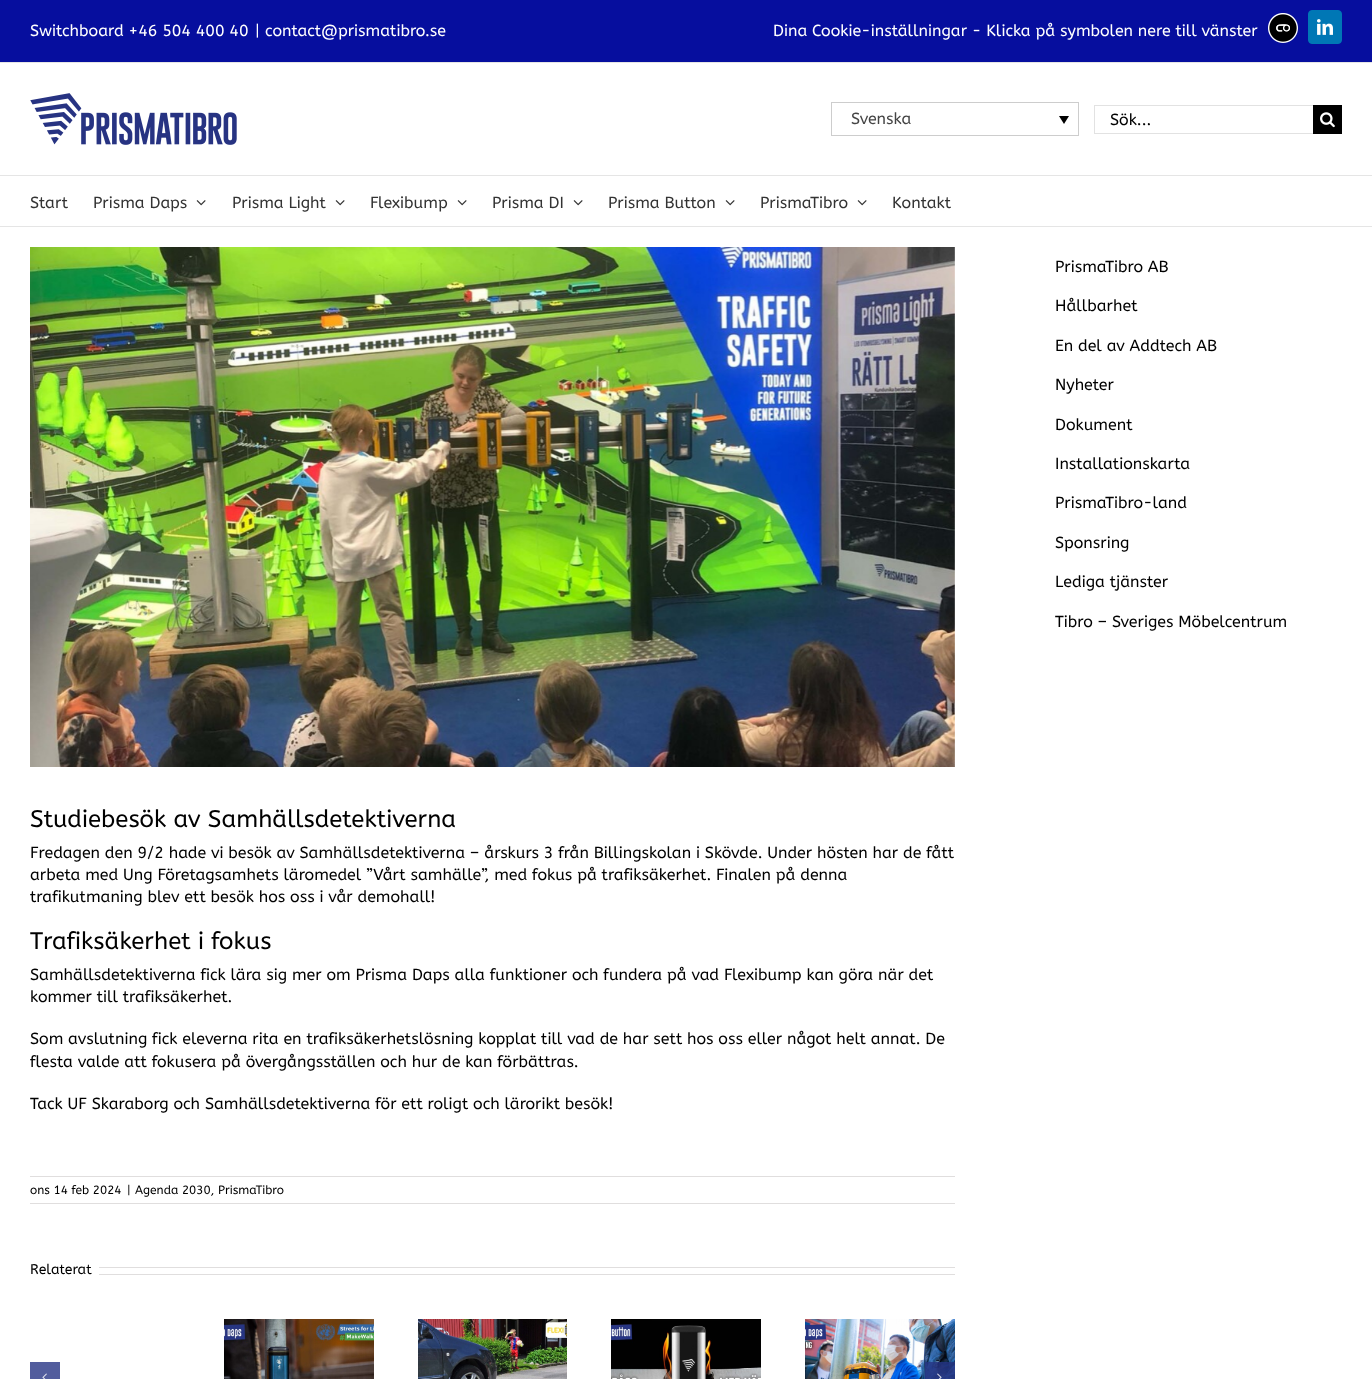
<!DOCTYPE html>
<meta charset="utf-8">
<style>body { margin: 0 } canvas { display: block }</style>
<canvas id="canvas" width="1372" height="1379"></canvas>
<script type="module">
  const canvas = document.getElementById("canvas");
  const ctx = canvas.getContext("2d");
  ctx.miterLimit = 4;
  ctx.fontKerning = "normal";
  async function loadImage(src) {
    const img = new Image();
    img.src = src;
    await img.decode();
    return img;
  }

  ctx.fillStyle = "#ffffff";
  ctx.fillRect(0, 0, 1372, 1379);
  ctx.fillStyle = "#060e9e";
  ctx.fillRect(0, 0, 1372, 62);
  ctx.fillStyle = "#e5e5e5";
  ctx.fillRect(0, 62, 1372, 1);
  ctx.font = "16px ABeeZee";
  ctx.fillStyle = "#ffffff";
  ctx.fillText("Switchboard +46 504 400 40", 30, 36);
  ctx.fillText("|", 255, 36);
  ctx.fillText("contact@prismatibro.se", 265, 36);
  ctx.fillText("Dina Cookie-inställningar - Klicka på symbolen nere till vänster", 773, 36);
  ctx.drawImage(await loadImage("img1.png"), 1268, 13, 30, 30);
  ctx.fillStyle = "#0077b5";
  ctx.beginPath();
  ctx.roundRect(1308.5, 10.5, 33, 33, 3.5);
  ctx.fill();
  ctx.strokeStyle = "#0077b5";
  ctx.stroke();
  ctx.drawImage(await loadImage("img2.png"), 1317, 19, 16, 16);
  ctx.fillStyle = "#e5e5e5";
  ctx.fillRect(0, 175, 1372, 1);
  ctx.drawImage(await loadImage("img3.png"), 30, 93, 207, 52);
  ctx.strokeStyle = "#cdcdcd";
  ctx.strokeRect(831.5, 102.5, 247, 33);
  ctx.fillStyle = "#444444";
  ctx.fillText("Svenska", 851, 124);
  ctx.fillStyle = "#000000";
  ctx.beginPath();
  ctx.moveTo(1059, 116);
  ctx.lineTo(1069, 116);
  ctx.lineTo(1064, 124);
  ctx.closePath();
  ctx.fill();
  ctx.fillStyle = "#e2e2e2";
  ctx.fillRect(1094, 105, 219, 1);
  ctx.fillRect(1094, 133, 219, 1);
  ctx.fillRect(1094, 105, 1, 29);
  ctx.fillStyle = "#000000";
  ctx.fillText("Sök...", 1110, 125);
  ctx.fillRect(1313, 105, 29, 29);
  ctx.drawImage(await loadImage("img4.png"), 1320, 112, 15, 16);
  ctx.fillStyle = "#e5e5e5";
  ctx.fillRect(0, 226, 1372, 1);
  ctx.fillStyle = "#333333";
  ctx.fillText("Start", 30, 208);
  ctx.fillText("Prisma Daps", 93, 208);
  ctx.drawImage(await loadImage("img5.png"), 196, 200, 10, 6);
  ctx.fillText("Prisma Light", 232, 208);
  ctx.drawImage(await loadImage("img5.png"), 335, 200, 10, 6);
  ctx.fillText("Flexibump", 370, 208);
  ctx.drawImage(await loadImage("img5.png"), 457, 200, 10, 6);
  ctx.fillText("Prisma DI", 492, 208);
  ctx.drawImage(await loadImage("img5.png"), 573, 200, 10, 6);
  ctx.fillText("Prisma Button", 608, 208);
  ctx.drawImage(await loadImage("img5.png"), 725, 200, 10, 6);
  ctx.fillText("PrismaTibro", 760, 208);
  ctx.drawImage(await loadImage("img5.png"), 857, 200, 10, 6);
  ctx.fillText("Kontakt", 892, 208);
  ctx.fillStyle = "#000000";
  ctx.fillText("PrismaTibro AB", 1055, 272);
  ctx.fillText("Hållbarhet", 1055, 311);
  ctx.fillText("En del av Addtech AB", 1055, 351);
  ctx.fillText("Nyheter", 1055, 390);
  ctx.fillText("Dokument", 1055, 430);
  ctx.fillText("Installationskarta", 1055, 469);
  ctx.fillText("PrismaTibro-land", 1055, 508);
  ctx.fillText("Sponsring", 1055, 548);
  ctx.fillText("Lediga tjänster", 1055, 587);
  ctx.fillText("Tibro – Sveriges Möbelcentrum", 1055, 627);
  ctx.drawImage(await loadImage("img6.png"), 30, 247, 925, 520);
  ctx.font = "24px ABeeZee";
  ctx.fillText("Studiebesök av Samhällsdetektiverna", 30, 827);
  ctx.font = "16px ABeeZee";
  ctx.fillText("Fredagen den 9/2 hade vi besök av Samhällsdetektiverna – årskurs 3 från Billingskolan i Skövde. Under hösten har de fått", 30, 858);
  ctx.fillText("arbeta med Ung Företagsamhets läromedel ”Vårt samhälle”, med fokus på trafiksäkerhet. Finalen på denna", 30, 880);
  ctx.fillText("trafikutmaning blev ett besök hos oss i vår demohall!", 30, 902);
  ctx.font = "24px ABeeZee";
  ctx.fillText("Trafiksäkerhet i fokus", 30, 949);
  ctx.font = "16px ABeeZee";
  ctx.fillText("Samhällsdetektiverna fick lära sig mer om Prisma Daps alla funktioner och fundera på vad Flexibump kan göra när det", 30, 980);
  ctx.fillText("kommer till trafiksäkerhet.", 30, 1002);
  ctx.fillText("Som avslutning fick eleverna rita en trafiksäkerhetslösning kopplat till vad de har sett hos oss eller något helt annat. De", 30, 1044);
  ctx.fillText("flesta valde att fokusera på övergångsställen och hur de kan förbättras.", 30, 1067);
  ctx.fillText("Tack UF Skaraborg och Samhällsdetektiverna för ett roligt och lärorikt besök!", 30, 1109);
  ctx.fillStyle = "#e0dede";
  ctx.fillRect(30, 1176, 925, 1);
  ctx.fillRect(30, 1203, 925, 1);
  ctx.font = "12px ABeeZee";
  ctx.fillStyle = "#000000";
  ctx.fillText("ons 14 feb 2024", 30, 1194);
  ctx.fillText("|", 127, 1194);
  ctx.fillText("Agenda 2030, PrismaTibro", 135, 1194);
  ctx.font = "14px ABeeZee";
  ctx.fillText("Relaterat", 30, 1274);
  ctx.fillStyle = "#e0dede";
  ctx.fillRect(99, 1267, 856, 1);
  ctx.fillRect(99, 1274, 856, 1);
  ctx.fillStyle = "#525d9d";
  ctx.fillRect(30, 1362, 30, 17);
  ctx.drawImage(await loadImage("img7.png"), 42, 1373, 5, 6);
  ctx.drawImage(await loadImage("img8.png"), 224, 1319, 150, 60);
  ctx.drawImage(await loadImage("img9.png"), 418, 1319, 149, 60);
  ctx.drawImage(await loadImage("img10.png"), 611, 1319, 150, 60);
  ctx.drawImage(await loadImage("img11.png"), 805, 1319, 150, 60);
  ctx.fillStyle = "rgba(39, 52, 132, 0.8)";
  ctx.fillRect(925, 1362, 30, 17);
  ctx.drawImage(await loadImage("img12.png"), 937, 1373, 5, 6);
</script>
